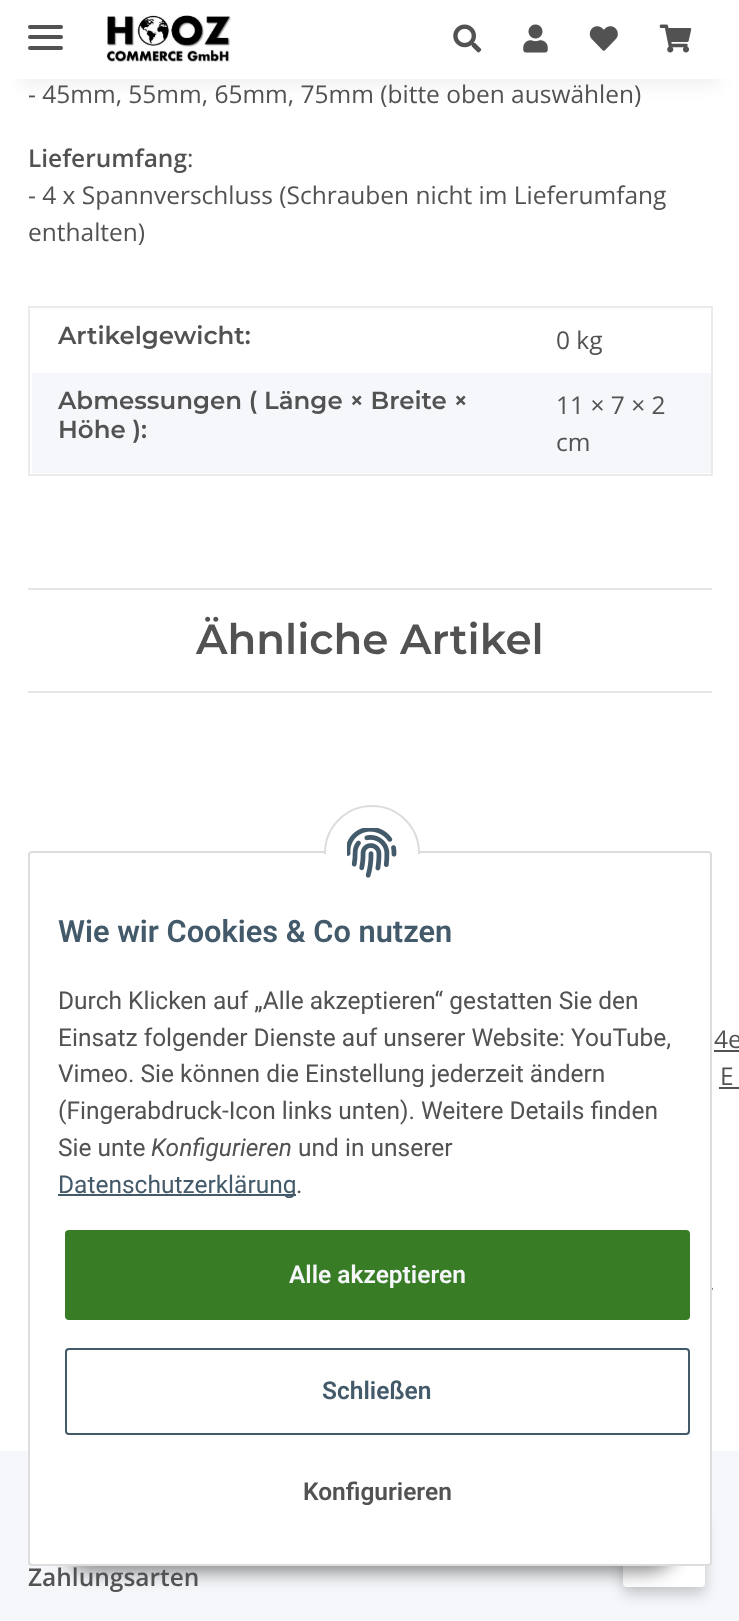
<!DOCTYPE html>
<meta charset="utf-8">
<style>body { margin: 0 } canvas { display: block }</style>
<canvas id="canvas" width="739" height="1621"></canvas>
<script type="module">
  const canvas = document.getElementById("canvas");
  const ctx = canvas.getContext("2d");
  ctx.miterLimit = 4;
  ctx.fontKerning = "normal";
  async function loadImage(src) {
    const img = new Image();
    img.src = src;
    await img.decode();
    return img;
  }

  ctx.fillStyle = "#f5f7fa";
  ctx.fillRect(0, 0, 739, 1621);
  ctx.fillStyle = "#ffffff";
  ctx.fillRect(0, 79, 739, 1372);
  ctx.fillStyle = "rgba(0, 0, 0, 0.06)";
  ctx.filter = "blur(8px)";
  ctx.beginPath();
  ctx.rect(21, 49, 698, 37);
  ctx.fill();
  ctx.filter = "none";
  ctx.fillStyle = "#ffffff";
  ctx.fillRect(0, 0, 739, 79);
  ctx.fillStyle = "#525252";
  ctx.beginPath();
  ctx.roundRect(28, 35, 35, 4, 2);
  ctx.fill();
  ctx.beginPath();
  ctx.roundRect(28, 25, 35, 4, 2);
  ctx.fill();
  ctx.beginPath();
  ctx.roundRect(28, 46, 35, 4, 2);
  ctx.fill();
  ctx.drawImage(await loadImage("img1.png"), 106, 15, 125, 47);
  ctx.drawImage(await loadImage("img2.png"), 453, 24, 29, 29);
  ctx.drawImage(await loadImage("img3.png"), 523, 24, 25, 29);
  ctx.drawImage(await loadImage("img4.png"), 589, 26, 29, 25);
  ctx.drawImage(await loadImage("img5.png"), 659, 24, 33, 29);
  ctx.font = "24.5px Open Sans";
  ctx.fillText("- 45mm, 55mm, 65mm, 75mm (bitte oben auswählen)", 28, 103);
  ctx.font = "600 24.5px Open Sans";
  ctx.fillText("Lieferumfang", 28, 167);
  ctx.font = "24.5px Open Sans";
  ctx.fillText(":", 187, 167);
  ctx.fillText("- 4 x Spannverschluss (Schrauben nicht im Lieferumfang", 28, 204);
  ctx.fillText("enthalten)", 28, 241);
  ctx.fillStyle = "#ebebeb";
  ctx.fillRect(28, 306, 684, 2);
  ctx.fillRect(711, 371, 2, 105);
  ctx.fillRect(711, 306, 2, 67);
  ctx.fillRect(28, 474, 684, 2);
  ctx.fillRect(28, 371, 2, 105);
  ctx.fillRect(28, 306, 2, 67);
  ctx.font = "600 24.5px Montserrat";
  ctx.fillStyle = "#525252";
  ctx.fillText("Artikelgewicht:", 58, 344);
  ctx.font = "24.5px Open Sans";
  ctx.fillText("0 kg", 556, 349);
  ctx.fillStyle = "#f5f7fa";
  ctx.fillRect(32, 373, 679, 100);
  ctx.font = "600 24.5px Montserrat";
  ctx.fillStyle = "#525252";
  ctx.fillText("Abmessungen ( Länge × Breite ×", 58, 409);
  ctx.fillText("Höhe ):", 58, 438);
  ctx.font = "24.5px Open Sans";
  ctx.fillText("11 × 7 × 2", 556, 414);
  ctx.fillText("cm", 556, 451);
  ctx.fillStyle = "#e6e6e6";
  ctx.fillRect(28, 588, 684, 2);
  ctx.fillRect(28, 691, 684, 2);
  ctx.font = "600 42px Montserrat";
  ctx.fillStyle = "#525252";
  ctx.fillText("Ähnliche Artikel", 196, 654);
  ctx.font = "24.5px Open Sans";
  ctx.fillText("4e", 714, 1048);
  ctx.fillRect(714, 1050, 25, 2);
  ctx.fillText("E", 720, 1085);
  ctx.fillRect(719, 1087, 20, 2);
  ctx.drawImage(await loadImage("img6.png"), 712, 1287, 1, 3);
  ctx.fillStyle = "rgba(0, 0, 0, 0.2)";
  ctx.filter = "blur(7px)";
  ctx.beginPath();
  ctx.roundRect(623, 1517, 82, 77, 4);
  ctx.fill();
  ctx.filter = "none";
  ctx.fillStyle = "#ffffff";
  ctx.beginPath();
  ctx.roundRect(623, 1510, 82, 77, 4);
  ctx.fill();
  ctx.fillStyle = "rgba(0, 0, 0, 0.45)";
  ctx.filter = "blur(9px)";
  ctx.beginPath();
  ctx.roundRect(63, 1516, 614, 56, 28);
  ctx.fill();
  ctx.filter = "none";
  ctx.fillStyle = "#ffffff";
  ctx.beginPath();
  ctx.roundRect(29, 852, 682, 713, 3);
  ctx.fill();
  ctx.strokeStyle = "#dddddd";
  ctx.lineWidth = 2;
  ctx.stroke();
  ctx.beginPath();
  ctx.arc(372, 853, 47, 0, Math.PI * 2);
  ctx.fill();
  ctx.stroke();
  ctx.fillRect(324, 854, 96, 47);
  ctx.drawImage(await loadImage("img7.png"), 347, 828, 50, 50);
  ctx.font = "600 30.75px Roboto";
  ctx.fillStyle = "#435a6b";
  ctx.fillText("Wie wir Cookies & Co nutzen", 58, 942);
  ctx.font = "24.5px Roboto";
  ctx.fillStyle = "#525252";
  ctx.fillText("Durch Klicken auf „Alle akzeptieren“ gestatten Sie den", 58, 1009);
  ctx.fillText("Einsatz folgender Dienste auf unserer Website: YouTube,", 58, 1046);
  ctx.fillText("Vimeo. Sie können die Einstellung jederzeit ändern", 58, 1082);
  ctx.fillText("(Fingerabdruck-Icon links unten). Weitere Details finden", 58, 1119);
  ctx.fillText("Sie unte", 58, 1156);
  ctx.font = "italic 24.5px Roboto";
  ctx.fillText("Konfigurieren", 151, 1156);
  ctx.font = "24.5px Roboto";
  ctx.fillText("und in unserer", 298, 1156);
  ctx.fillStyle = "#435a6b";
  ctx.fillRect(58, 1194, 238, 2);
  ctx.fillText("Datenschutzerklärung", 58, 1193);
  ctx.fillStyle = "#525252";
  ctx.fillText(".", 296, 1193);
  ctx.fillStyle = "#397c26";
  ctx.beginPath();
  ctx.roundRect(66, 1231, 623, 88, 3);
  ctx.fill();
  ctx.strokeStyle = "#397c26";
  ctx.stroke();
  ctx.font = "600 24.5px Roboto";
  ctx.fillStyle = "#f5f7fa";
  ctx.fillText("Alle akzeptieren", 289, 1283);
  ctx.beginPath();
  ctx.roundRect(66, 1349, 623, 85, 3);
  ctx.strokeStyle = "#435a6b";
  ctx.stroke();
  ctx.fillStyle = "#435a6b";
  ctx.fillText("Schließen", 322, 1399);
  ctx.fillStyle = "#525252";
  ctx.fillText("Konfigurieren", 303, 1500);
  ctx.font = "600 24.5px Open Sans";
  ctx.fillText("Zahlungsarten", 28, 1586);
</script>
